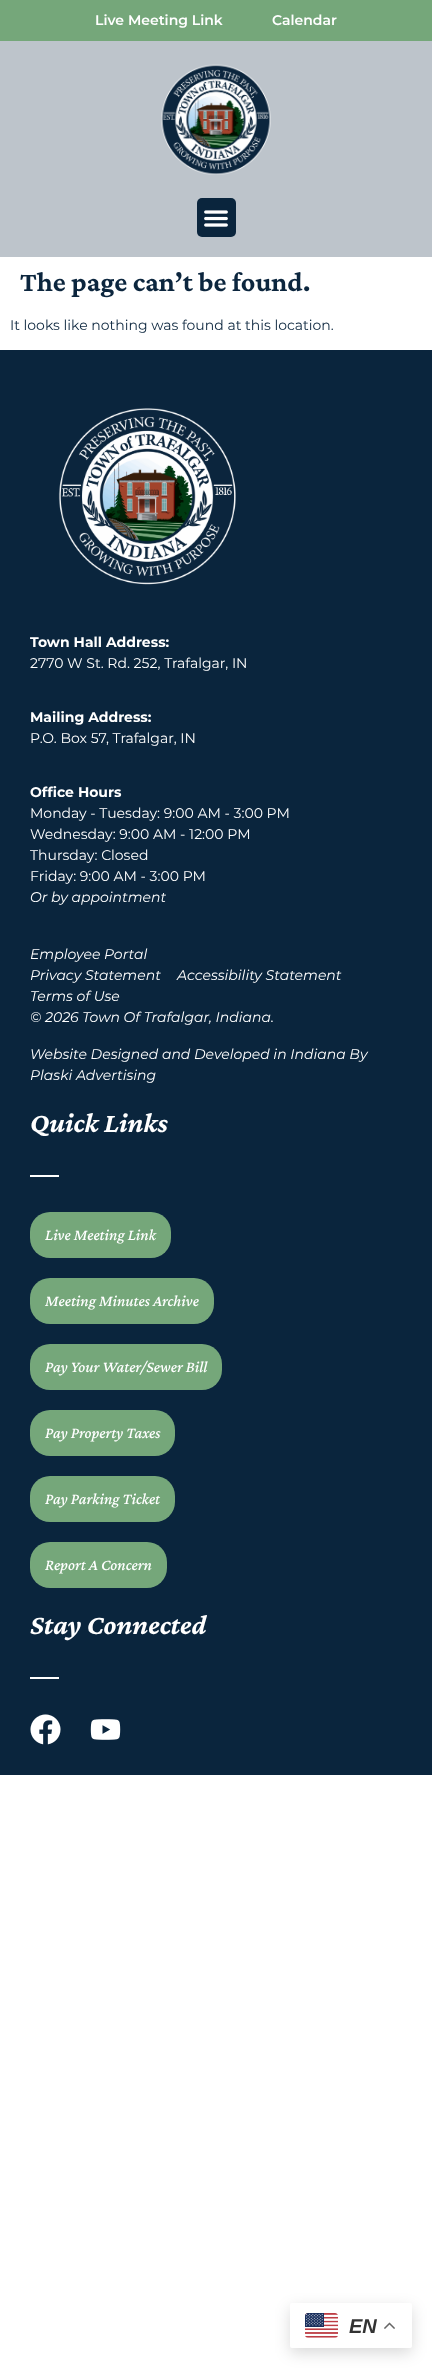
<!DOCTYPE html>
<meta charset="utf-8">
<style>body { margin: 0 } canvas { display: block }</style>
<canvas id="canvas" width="432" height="2374"></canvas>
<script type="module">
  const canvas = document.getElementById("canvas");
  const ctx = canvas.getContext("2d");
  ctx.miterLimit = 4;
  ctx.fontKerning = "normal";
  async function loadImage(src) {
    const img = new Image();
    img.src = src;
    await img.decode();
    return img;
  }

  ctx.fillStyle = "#ffffff";
  ctx.fillRect(0, 0, 432, 2374);
  ctx.fillStyle = "#75a77a";
  ctx.fillRect(0, 0, 432, 41);
  ctx.font = "600 14px Montserrat";
  ctx.fillStyle = "#ffffff";
  ctx.fillText("Live Meeting Link", 95, 25);
  ctx.fillText("Calendar", 272, 25);
  ctx.fillStyle = "#bdc4cb";
  ctx.fillRect(0, 41, 432, 216);
  ctx.drawImage(await loadImage("img1.png"), 161, 64, 110, 111);
  ctx.fillStyle = "#0a253d";
  ctx.beginPath();
  ctx.roundRect(197, 198, 39, 39, 5);
  ctx.fill();
  ctx.drawImage(await loadImage("img2.png"), 204, 210, 24, 17);
  ctx.font = "bold 28px Crimson Pro";
  ctx.fillStyle = "#0c263e";
  ctx.fillText("The page can’t be found.", 20, 291);
  ctx.font = "14px Montserrat";
  ctx.fillText("It looks like nothing was found at this location.", 10, 330);
  ctx.fillStyle = "#0a253d";
  ctx.fillRect(0, 350, 432, 1425);
  ctx.drawImage(await loadImage("img3.png"), 58, 408, 178, 177);
  ctx.font = "bold 14px Montserrat";
  ctx.fillStyle = "#ffffff";
  ctx.fillText("Town Hall Address:", 30, 647);
  ctx.font = "14px Montserrat";
  ctx.fillText("2770 W St. Rd. 252, Trafalgar, IN", 30, 668);
  ctx.font = "bold 14px Montserrat";
  ctx.fillText("Mailing Address:", 30, 722);
  ctx.font = "14px Montserrat";
  ctx.fillText("P.O. Box 57, Trafalgar, IN", 30, 743);
  ctx.font = "bold 14px Montserrat";
  ctx.fillText("Office Hours", 30, 797);
  ctx.font = "14px Montserrat";
  ctx.fillText("Monday - Tuesday: 9:00 AM - 3:00 PM", 30, 818);
  ctx.fillText("Wednesday: 9:00 AM - 12:00 PM", 30, 839);
  ctx.fillText("Thursday: Closed", 30, 860);
  ctx.fillText("Friday: 9:00 AM - 3:00 PM", 30, 881);
  ctx.font = "italic 14px Montserrat";
  ctx.fillText("Or by appointment", 30, 902);
  ctx.fillText("Employee Portal", 30, 959);
  ctx.fillText("Privacy Statement", 30, 980);
  ctx.fillText("Accessibility Statement", 177, 980);
  ctx.fillText("Terms of Use", 30, 1001);
  ctx.fillText("© 2026 Town Of Trafalgar, Indiana.", 30, 1022);
  ctx.fillText("Website Designed and Developed in Indiana By", 30, 1059);
  ctx.fillText("Plaski Advertising", 30, 1080);
  ctx.font = "italic bold 28px Crimson Pro";
  ctx.fillText("Quick Links", 30, 1132);
  ctx.fillRect(30, 1175, 29, 2);
  ctx.fillStyle = "#75a77a";
  ctx.beginPath();
  ctx.roundRect(30, 1212, 141, 46, 20);
  ctx.fill();
  ctx.font = "italic 500 16px Crimson Pro";
  ctx.fillStyle = "#ffffff";
  ctx.fillText("Live Meeting Link", 45, 1240);
  ctx.fillStyle = "#75a77a";
  ctx.beginPath();
  ctx.roundRect(30, 1278, 184, 46, 20);
  ctx.fill();
  ctx.fillStyle = "#ffffff";
  ctx.fillText("Meeting Minutes Archive", 45, 1306);
  ctx.fillStyle = "#75a77a";
  ctx.beginPath();
  ctx.roundRect(30, 1344, 192, 46, 20);
  ctx.fill();
  ctx.fillStyle = "#ffffff";
  ctx.fillText("Pay Your Water/Sewer Bill", 45, 1372);
  ctx.fillStyle = "#75a77a";
  ctx.beginPath();
  ctx.roundRect(30, 1410, 145, 46, 20);
  ctx.fill();
  ctx.fillStyle = "#ffffff";
  ctx.fillText("Pay Property Taxes", 45, 1438);
  ctx.fillStyle = "#75a77a";
  ctx.beginPath();
  ctx.roundRect(30, 1476, 145, 46, 20);
  ctx.fill();
  ctx.fillStyle = "#ffffff";
  ctx.fillText("Pay Parking Ticket", 45, 1504);
  ctx.fillStyle = "#75a77a";
  ctx.beginPath();
  ctx.roundRect(30, 1542, 137, 46, 20);
  ctx.fill();
  ctx.fillStyle = "#ffffff";
  ctx.fillText("Report A Concern", 45, 1570);
  ctx.font = "italic bold 28px Crimson Pro";
  ctx.fillText("Stay Connected", 30, 1634);
  ctx.fillRect(30, 1677, 29, 2);
  ctx.drawImage(await loadImage("img4.png"), 30, 1714, 31, 31);
  ctx.drawImage(await loadImage("img5.png"), 90, 1719, 31, 21);
  ctx.fillStyle = "rgba(0, 0, 0, 0.15)";
  ctx.filter = "blur(7.5px)";
  ctx.beginPath();
  ctx.roundRect(290, 2308, 122, 45, 2);
  ctx.fill();
  ctx.filter = "none";
  ctx.fillStyle = "#ffffff";
  ctx.beginPath();
  ctx.roundRect(290, 2303, 122, 45, 2);
  ctx.fill();
  ctx.drawImage(await loadImage("img6.png"), 305, 2313, 33, 25);
  ctx.font = "italic bold 20px Liberation Sans";
  ctx.fillStyle = "#333333";
  ctx.fillText("EN", 349, 2333);
  ctx.drawImage(await loadImage("img7.png"), 384, 2322, 11, 7);
</script>
